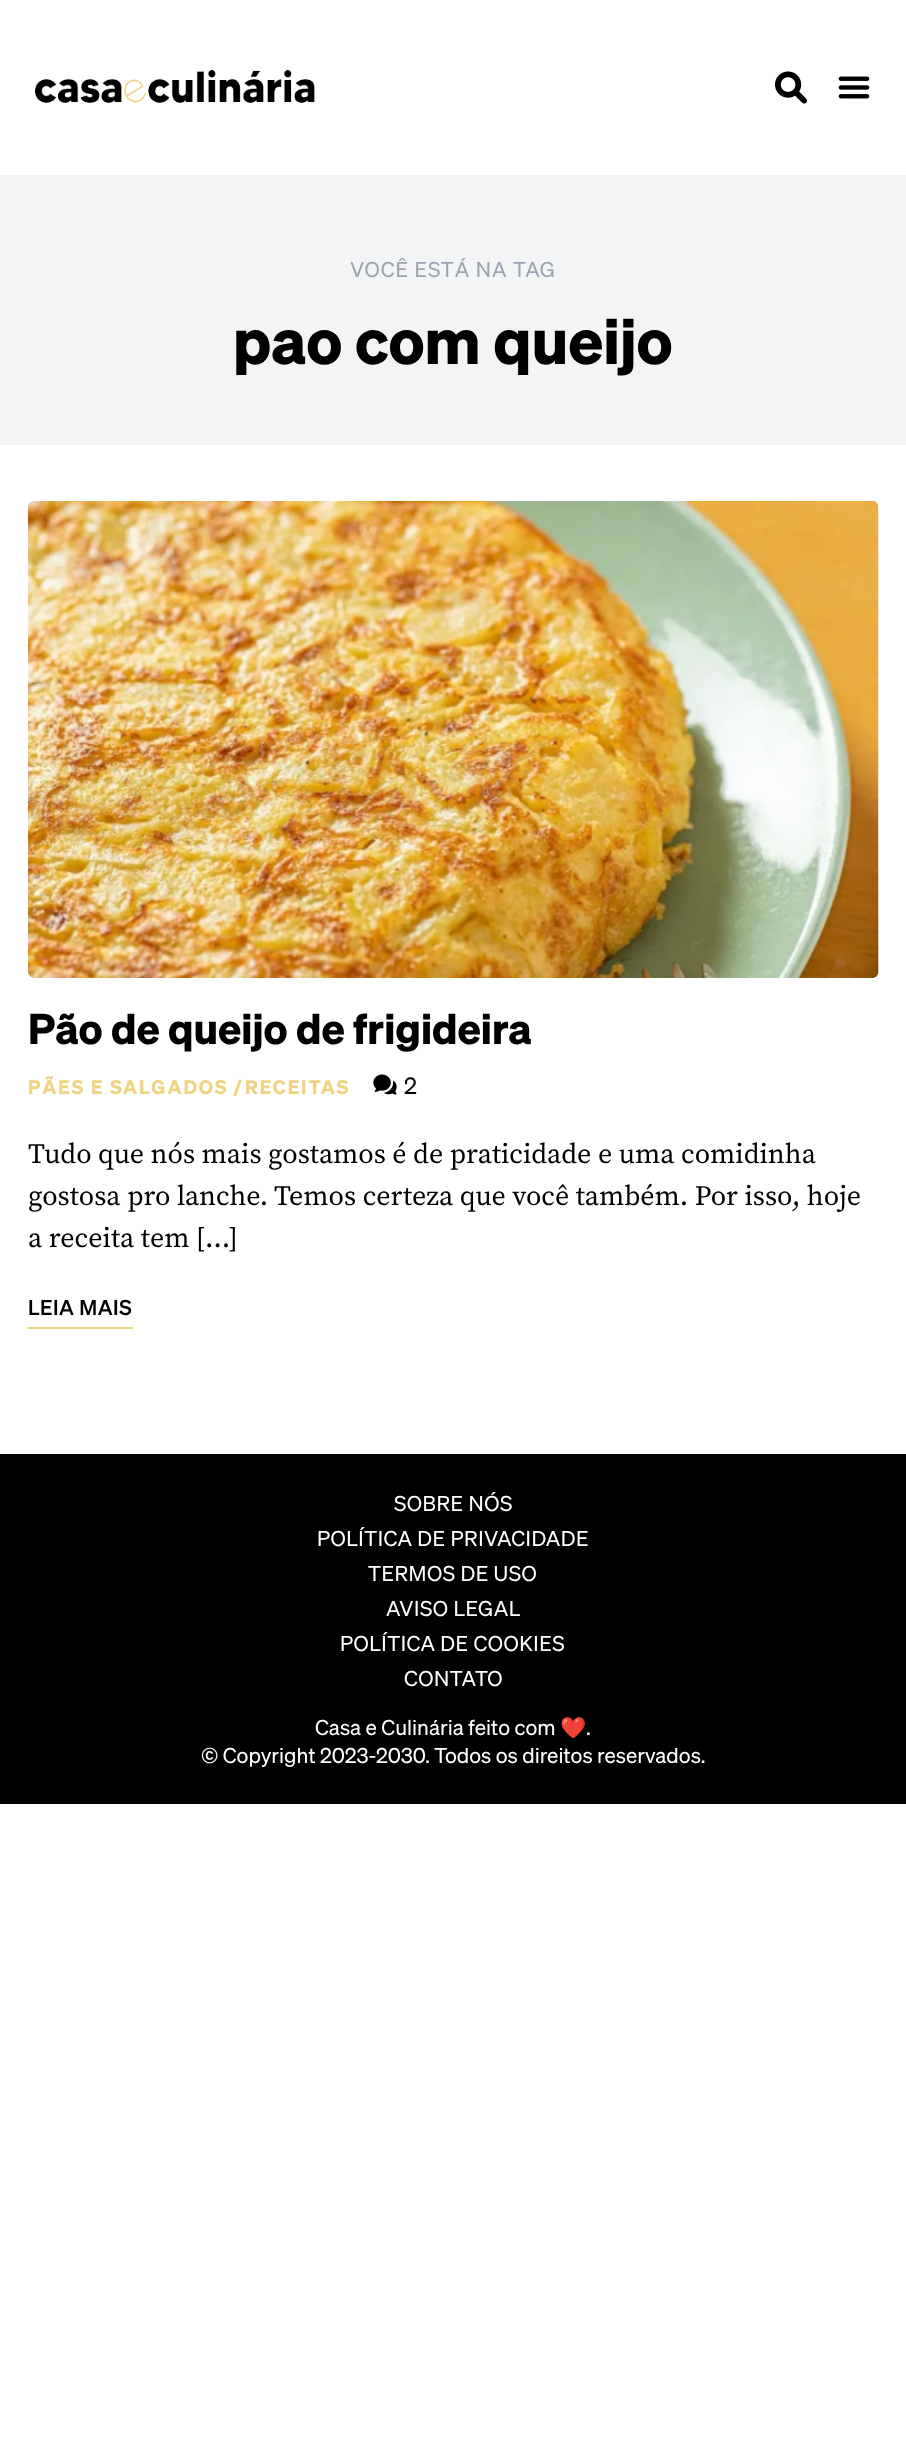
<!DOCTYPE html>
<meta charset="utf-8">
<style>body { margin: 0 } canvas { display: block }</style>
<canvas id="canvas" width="906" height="2462"></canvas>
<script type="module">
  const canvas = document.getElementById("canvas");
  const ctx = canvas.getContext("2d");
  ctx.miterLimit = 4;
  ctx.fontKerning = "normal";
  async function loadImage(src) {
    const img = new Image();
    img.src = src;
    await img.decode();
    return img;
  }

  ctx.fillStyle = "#ffffff";
  ctx.fillRect(0, 0, 906, 2462);
  ctx.drawImage(await loadImage("img1.png"), 35, 70, 280, 33);
  ctx.drawImage(await loadImage("img2.png"), 775, 71, 32, 33);
  ctx.drawImage(await loadImage("img3.png"), 838, 76, 32, 23);
  ctx.fillStyle = "#f3f4f6";
  ctx.fillRect(0, 175, 906, 270);
  ctx.letterSpacing = "1px";
  ctx.font = "italic 21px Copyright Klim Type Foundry";
  ctx.fillStyle = "#9ca3af";
  ctx.fillText("VOCÊ ESTÁ NA TAG", 350, 277);
  ctx.letterSpacing = "0px";
  ctx.font = "italic bold 63px Copyright Klim Type Foundry";
  ctx.fillStyle = "#000000";
  ctx.fillText("pao com queijo", 233, 364);
  ctx.drawImage(await loadImage("img4.png"), 28, 501, 851, 477);
  ctx.font = "italic bold 42px Copyright Klim Type Foundry";
  ctx.fillText("Pão de queijo de frigideira", 28, 1044);
  ctx.letterSpacing = "1.9px";
  ctx.font = "italic bold 19.25px Copyright Klim Type Foundry";
  ctx.fillStyle = "#efd483";
  ctx.fillText("PÃES E SALGADOS", 28, 1094);
  ctx.letterSpacing = "0px";
  ctx.fillText("/", 233, 1094);
  ctx.letterSpacing = "1.9px";
  ctx.fillText("RECEITAS", 245, 1094);
  ctx.drawImage(await loadImage("img5.png"), 373, 1074, 24, 21);
  ctx.letterSpacing = "0px";
  ctx.font = "italic 23px Copyright Klim Type Foundry";
  ctx.fillStyle = "#000000";
  ctx.fillText("2", 404, 1094);
  ctx.font = "28px Source Serif Pro";
  ctx.fillText("Tudo que nós mais gostamos é de praticidade e uma comidinha", 28, 1163);
  ctx.fillText("gostosa pro lanche. Temos certeza que você também. Por isso, hoje", 28, 1205);
  ctx.fillText("a receita tem […]", 28, 1247);
  ctx.letterSpacing = "0.5px";
  ctx.font = "italic 500 21px Copyright Klim Type Foundry";
  ctx.fillText("LEIA MAIS", 28, 1315);
  ctx.fillStyle = "#efd483";
  ctx.fillRect(28, 1327, 105, 2);
  ctx.fillStyle = "#000000";
  ctx.fillRect(0, 1454, 906, 350);
  ctx.font = "italic 21px Copyright Klim Type Foundry";
  ctx.fillStyle = "#ffffff";
  ctx.fillText("SOBRE NÓS", 394, 1511);
  ctx.fillText("POLÍTICA DE PRIVACIDADE", 317, 1546);
  ctx.fillText("TERMOS DE USO", 368, 1581);
  ctx.fillText("AVISO LEGAL", 386, 1616);
  ctx.fillText("POLÍTICA DE COOKIES", 340, 1651);
  ctx.fillText("CONTATO", 404, 1686);
  ctx.letterSpacing = "0px";
  ctx.fillText("Casa e Culinária feito com", 315, 1735);
  ctx.font = "21px Noto Color Emoji";
  ctx.fillText("❤️", 560, 1735);
  ctx.font = "italic 21px Copyright Klim Type Foundry";
  ctx.fillText(".", 586, 1735);
  ctx.fillText("© Copyright 2023-2030. Todos os direitos reservados.", 201, 1763);
</script>
